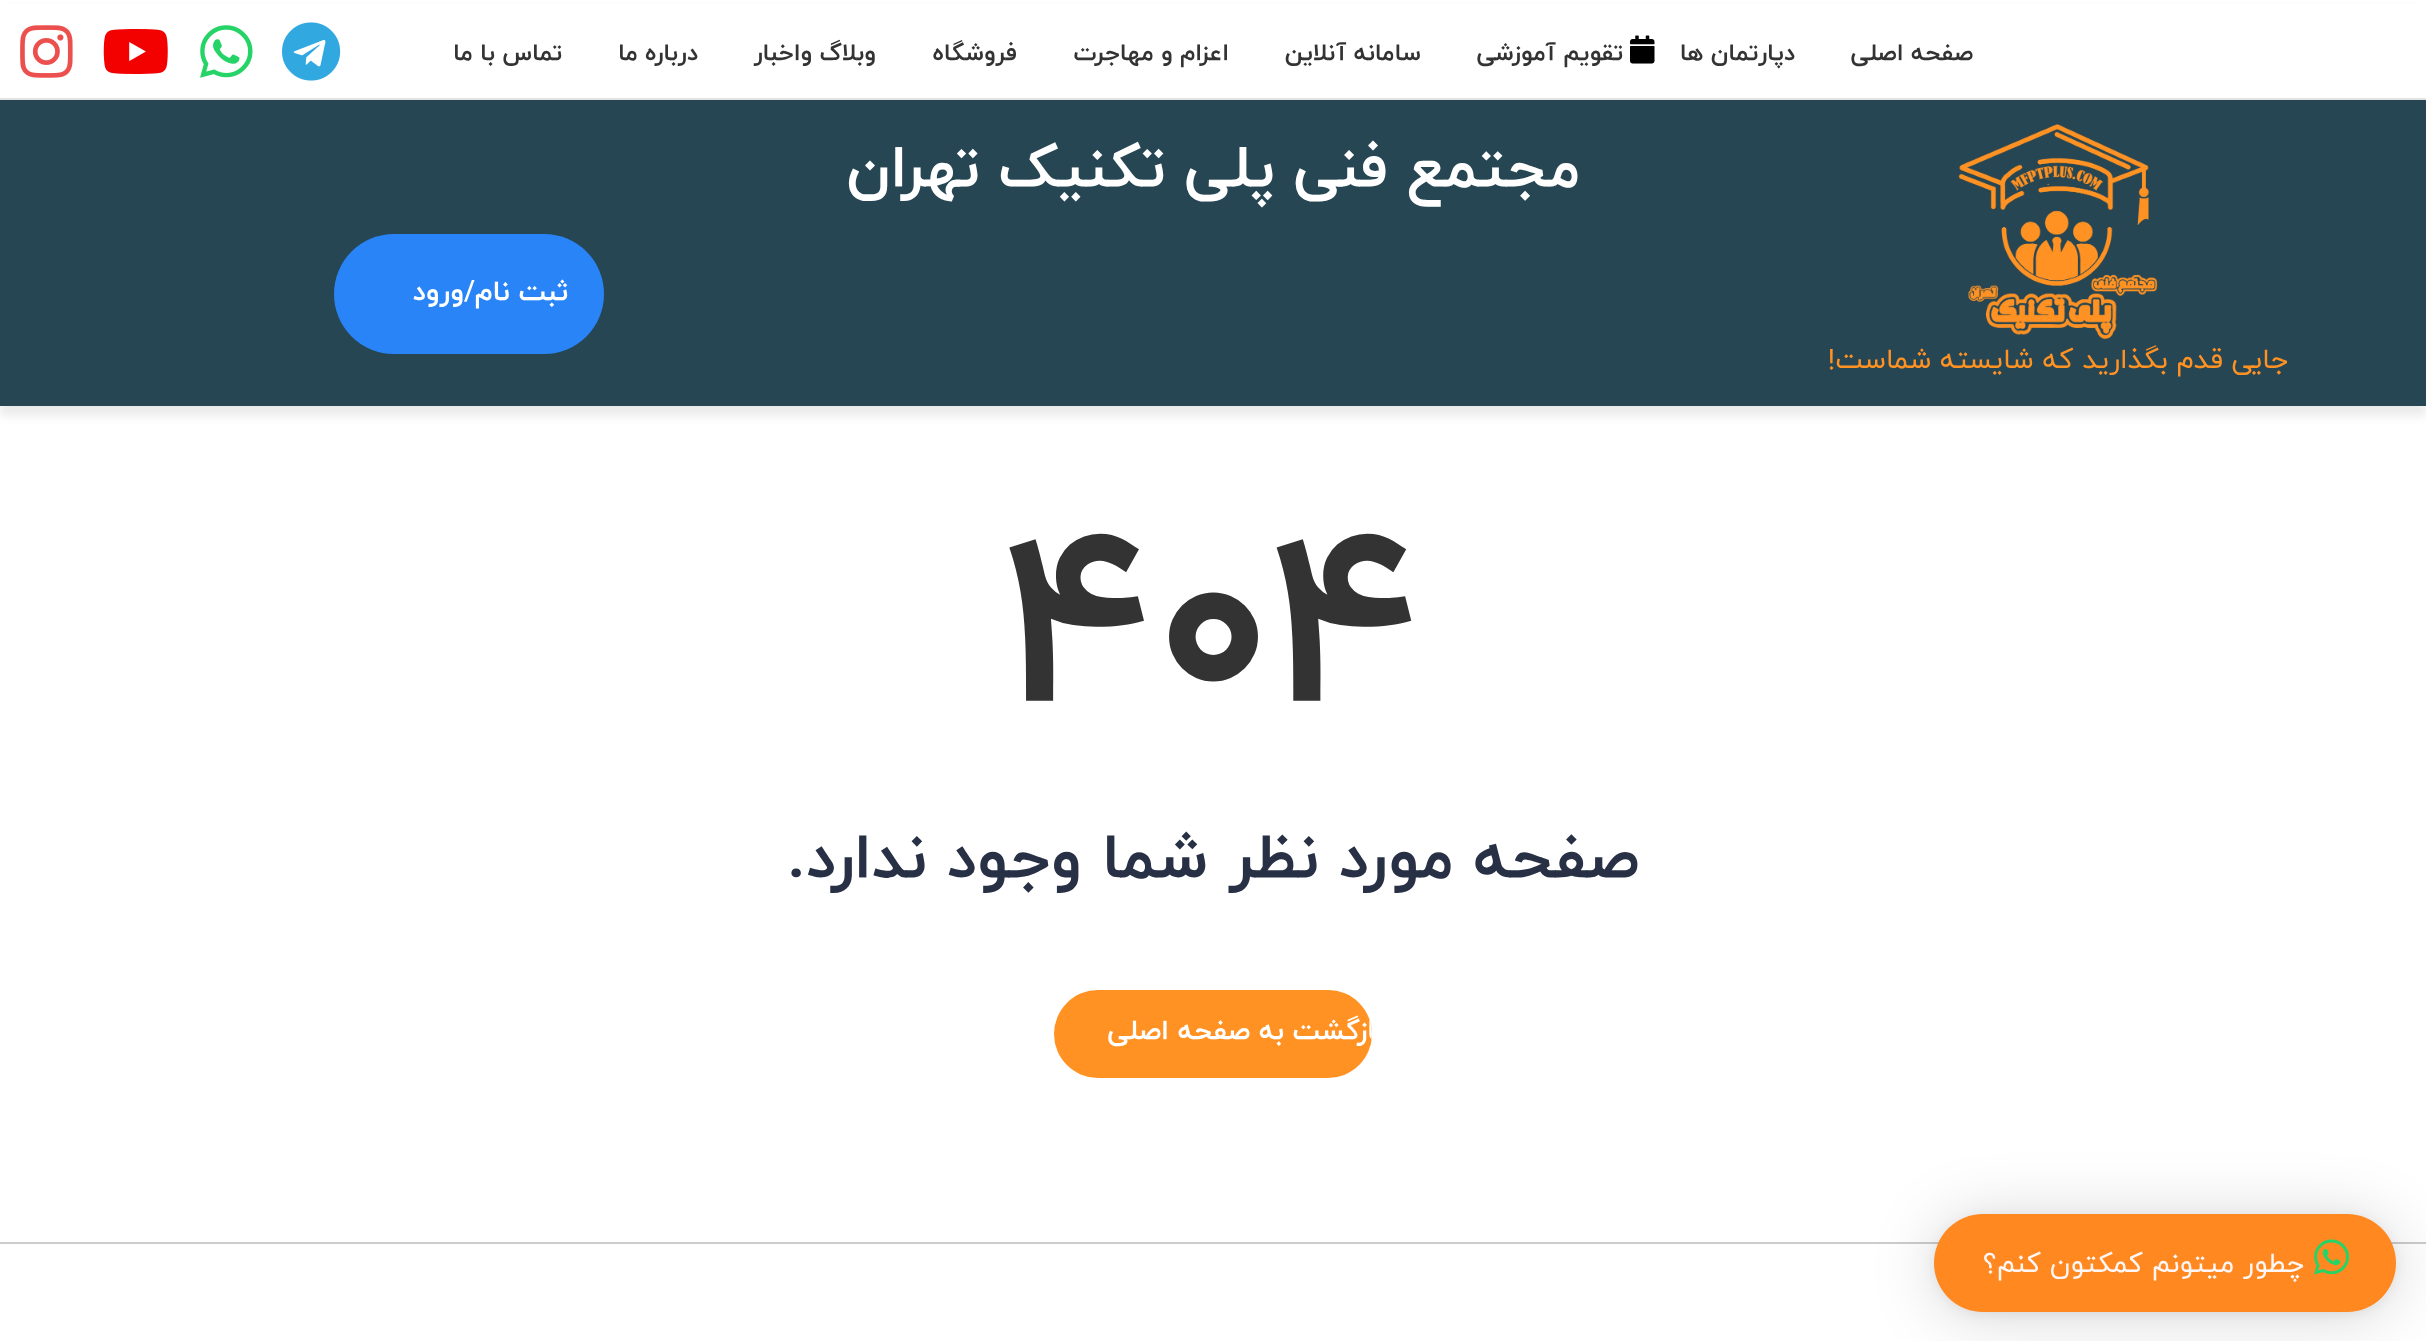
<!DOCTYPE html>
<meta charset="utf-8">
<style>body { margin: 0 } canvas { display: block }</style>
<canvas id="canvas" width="2426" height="1341"></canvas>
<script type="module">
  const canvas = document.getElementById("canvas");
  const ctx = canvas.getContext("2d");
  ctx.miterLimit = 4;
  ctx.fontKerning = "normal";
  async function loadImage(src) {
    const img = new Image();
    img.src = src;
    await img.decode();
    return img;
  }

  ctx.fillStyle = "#ffffff";
  ctx.fillRect(0, 0, 2426, 1341);
  ctx.fillStyle = "rgba(0, 0, 0, 0.08)";
  ctx.filter = "blur(5px)";
  ctx.beginPath();
  ctx.rect(0, 10, 2426, 406);
  ctx.fill();
  ctx.filter = "none";
  ctx.fillStyle = "#264653";
  ctx.fillRect(0, 100, 2426, 306);
  ctx.fillStyle = "#ffffff";
  ctx.fillRect(0, 4, 2426, 94);
  ctx.fillStyle = "#e2e2e2";
  ctx.fillRect(0, 98, 2426, 2);
  ctx.direction = "rtl";
  ctx.font = "bold 24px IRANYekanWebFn";
  ctx.fillStyle = "#333333";
  ctx.fillText("صفحه اصلی", 1973, 60);
  ctx.fillText("دپارتمان ها", 1795, 60);
  ctx.drawImage(await loadImage("img1.png"), 1630, 35, 25, 29);
  ctx.fillText("تقویم آموزشی", 1623, 60);
  ctx.fillText("سامانه آنلاین", 1421, 60);
  ctx.fillText("اعزام و مهاجرت", 1229, 60);
  ctx.fillText("فروشگاه", 1017, 60);
  ctx.fillText("وبلاگ واخبار", 876, 60);
  ctx.fillText("درباره ما", 698, 60);
  ctx.fillText("تماس با ما", 562, 60);
  ctx.drawImage(await loadImage("img2.png"), 282, 22, 59, 59);
  ctx.drawImage(await loadImage("img3.png"), 200, 25, 53, 53);
  ctx.drawImage(await loadImage("img4.png"), 103, 29, 65, 45);
  ctx.drawImage(await loadImage("img5.png"), 20, 25, 53, 53);
  ctx.font = "bold 60px IRANYekanWebFn";
  ctx.fillStyle = "#ffffff";
  ctx.fillText("مجتمع فنی پلی تکنیک تهران", 1580, 186);
  ctx.fillStyle = "#2985f7";
  ctx.beginPath();
  ctx.roundRect(334, 234, 270, 120, 60);
  ctx.fill();
  ctx.letterSpacing = "2px";
  ctx.wordSpacing = "-2px";
  ctx.font = "bold 28px IRANYekanWebFn";
  ctx.fillStyle = "#ffffff";
  ctx.fillText("ثبت نام/ورود", 568, 300);
  ctx.drawImage(await loadImage("img6.png"), 1958, 124, 200, 216);
  ctx.letterSpacing = "0px";
  ctx.wordSpacing = "0px";
  ctx.font = "28px IRANYekanWebFn";
  ctx.fillStyle = "#ff9223";
  ctx.fillText("جایی قدم بگذارید که شایسته شماست!", 2288, 368);
  ctx.direction = "ltr";
  ctx.font = "bold 240px IRANYekanWebFn";
  ctx.fillStyle = "#333333";
  ctx.fillText("404", 1005, 699);
  ctx.direction = "rtl";
  ctx.font = "bold 64px IRANYekanWebFn";
  ctx.fillStyle = "#273044";
  ctx.fillText("صفحه مورد نظر شما وجود ندارد.", 1639, 877);
  ctx.fillStyle = "#ff9223";
  ctx.beginPath();
  ctx.roundRect(1054, 990, 318, 88, 44);
  ctx.fill();
  ctx.save();
  ctx.beginPath();
  ctx.roundRect(1054, 990, 318, 88, 44);
  ctx.clip();
  ctx.letterSpacing = "2px";
  ctx.wordSpacing = "-2px";
  ctx.font = "bold 28px IRANYekanWebFn";
  ctx.fillStyle = "#ffffff";
  ctx.fillText("بازگشت به صفحه اصلی", 1384, 1039);
  ctx.restore();
  ctx.fillStyle = "#cccccc";
  ctx.fillRect(0, 1242, 2426, 2);
  ctx.fillStyle = "rgba(0, 0, 0, 0.16)";
  ctx.filter = "blur(32px)";
  ctx.beginPath();
  ctx.roundRect(1934, 1218, 462, 98, 49);
  ctx.fill();
  ctx.filter = "none";
  ctx.fillStyle = "rgba(0, 0, 0, 0.06)";
  ctx.filter = "blur(6px)";
  ctx.beginPath();
  ctx.roundRect(1934, 1216, 462, 98, 49);
  ctx.fill();
  ctx.filter = "none";
  ctx.fillStyle = "#ff8820";
  ctx.beginPath();
  ctx.roundRect(1934, 1214, 462, 98, 49);
  ctx.fill();
  ctx.drawImage(await loadImage("img7.png"), 2314, 1239, 35, 36);
  ctx.font = "28px IRANYekanWebFn";
  ctx.fillStyle = "#fff6f6";
  ctx.fillText("چطور میتونم کمکتون کنم؟", 2304, 1272);
</script>
